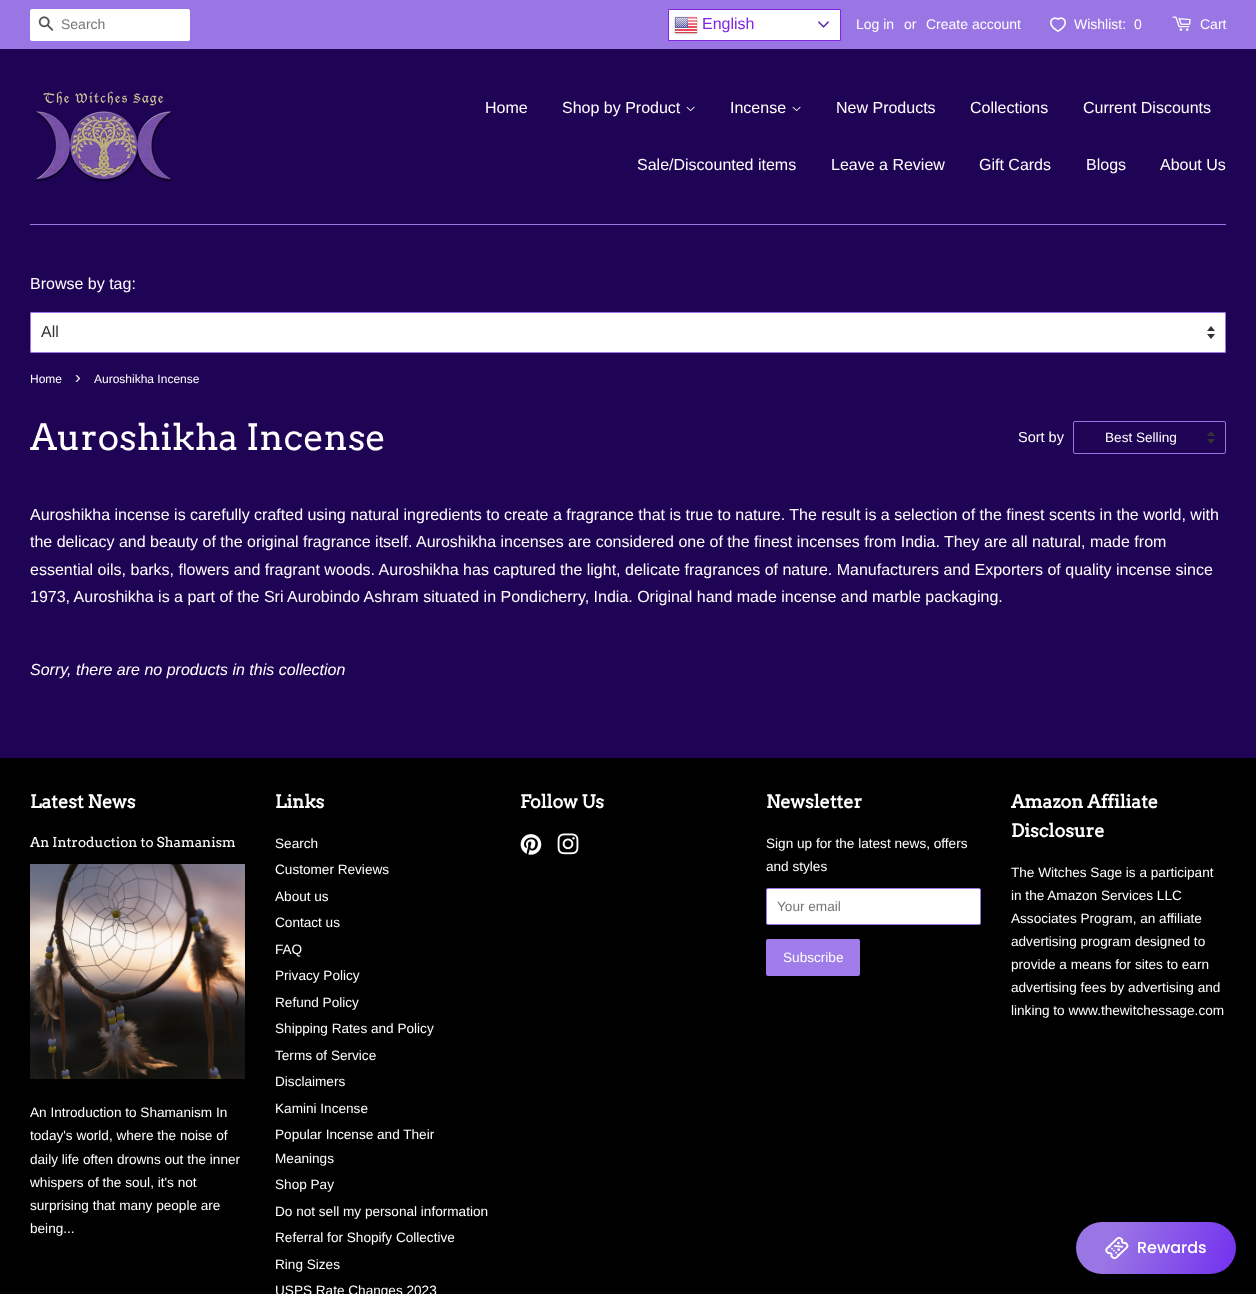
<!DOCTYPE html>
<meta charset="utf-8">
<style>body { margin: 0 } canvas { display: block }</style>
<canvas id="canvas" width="1256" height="1294"></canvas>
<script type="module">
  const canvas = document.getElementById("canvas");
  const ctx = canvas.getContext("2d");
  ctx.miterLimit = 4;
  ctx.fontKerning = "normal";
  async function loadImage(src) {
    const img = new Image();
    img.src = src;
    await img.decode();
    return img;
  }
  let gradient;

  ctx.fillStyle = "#1f0456";
  ctx.fillRect(0, 0, 1256, 1294);
  ctx.fillStyle = "#9a75e4";
  ctx.fillRect(0, 0, 1256, 49);
  ctx.fillStyle = "#ffffff";
  ctx.beginPath();
  ctx.roundRect(30, 9, 160, 32, 2);
  ctx.fill();
  ctx.drawImage(await loadImage("img1.png"), 38, 16, 16, 15);
  ctx.font = "14px Liberation Sans";
  ctx.fillStyle = "#757575";
  ctx.fillText("Search", 61, 29);
  ctx.fillStyle = "#ffffff";
  ctx.beginPath();
  ctx.rect(668.5, 9.5, 172, 31);
  ctx.fill();
  ctx.strokeStyle = "#8224e3";
  ctx.stroke();
  ctx.drawImage(await loadImage("img2.png"), 674, 16, 24, 19);
  ctx.font = "16px Liberation Sans";
  ctx.fillStyle = "#8224e3";
  ctx.fillText("English", 702, 29);
  ctx.drawImage(await loadImage("img3.png"), 818, 21, 11, 7);
  ctx.font = "14px Liberation Sans";
  ctx.fillStyle = "#ffffff";
  ctx.fillText("Log in", 856, 29);
  ctx.fillText("or", 904, 29);
  ctx.fillText("Create account", 926, 29);
  ctx.drawImage(await loadImage("img4.png"), 1050, 17, 16, 15);
  ctx.fillText("Wishlist:", 1074, 29);
  ctx.fillText("0", 1134, 29);
  ctx.drawImage(await loadImage("img5.png"), 1172, 16, 19, 15);
  ctx.fillText("Cart", 1200, 29);
  ctx.fillStyle = "#9a75e4";
  ctx.fillRect(30, 224, 1196, 1);
  ctx.drawImage(await loadImage("img6.png"), 35, 91, 138, 91);
  ctx.font = "16px Liberation Sans";
  ctx.fillStyle = "#ffffff";
  ctx.fillText("Home", 485, 113);
  ctx.fillText("Shop by Product", 562, 113);
  ctx.drawImage(await loadImage("img7.png"), 686, 106, 9, 6);
  ctx.fillText("Incense", 730, 113);
  ctx.drawImage(await loadImage("img7.png"), 792, 106, 9, 6);
  ctx.fillText("New Products", 836, 113);
  ctx.fillText("Collections", 970, 113);
  ctx.fillText("Current Discounts", 1083, 113);
  ctx.fillText("Sale/Discounted items", 637, 170);
  ctx.fillText("Leave a Review", 831, 170);
  ctx.fillText("Gift Cards", 979, 170);
  ctx.fillText("Blogs", 1086, 170);
  ctx.fillText("About Us", 1160, 170);
  ctx.fillText("Browse by tag:", 30, 289);
  ctx.beginPath();
  ctx.roundRect(30, 312, 1196, 41, 2);
  ctx.fill();
  ctx.drawImage(await loadImage("img8.png"), 1207, 326, 8, 13);
  ctx.beginPath();
  ctx.roundRect(30.5, 312.5, 1195, 40, 1.5);
  ctx.strokeStyle = "#9a75e4";
  ctx.stroke();
  ctx.fillStyle = "#333333";
  ctx.fillText("All", 41, 337);
  ctx.font = "12px Liberation Sans";
  ctx.fillStyle = "#ffffff";
  ctx.fillText("Home", 30, 383);
  ctx.font = "17px Liberation Sans";
  ctx.fillText("›", 75, 383);
  ctx.font = "12px Liberation Sans";
  ctx.fillText("Auroshikha Incense", 94, 383);
  ctx.font = "36px Arvo";
  ctx.fillText("Auroshikha Incense", 30, 450);
  ctx.font = "14.5px Liberation Sans";
  ctx.fillText("Sort by", 1018, 442);
  ctx.drawImage(await loadImage("img9.png"), 1207, 431, 8, 13);
  ctx.beginPath();
  ctx.roundRect(1073.5, 421.5, 152, 32, 1.5);
  ctx.stroke();
  ctx.font = "13.6px Liberation Sans";
  ctx.fillText("Best Selling", 1105, 442);
  ctx.font = "16px Liberation Sans";
  ctx.fillText("Auroshikha incense is carefully crafted using natural ingredients to create a fragrance that is true to nature. The result is a selection of the finest scents in the world, with", 30, 520);
  ctx.fillText("the delicacy and beauty of the original fragrance itself. Auroshikha incenses are considered one of the finest incenses from India. They are all natural, made from", 30, 547);
  ctx.fillText("essential oils, barks, flowers and fragrant woods. Auroshikha has captured the light, delicate fragrances of nature. Manufacturers and Exporters of quality incense since", 30, 575);
  ctx.fillText("1973, Auroshikha is a part of the Sri Aurobindo Ashram situated in Pondicherry, India. Original hand made incense and marble packaging.", 30, 602);
  ctx.font = "italic 16px Liberation Sans";
  ctx.fillText("Sorry, there are no products in this collection", 30, 675);
  ctx.fillStyle = "#000000";
  ctx.fillRect(0, 758, 1256, 536);
  ctx.font = "bold 18px Arvo";
  ctx.fillStyle = "#ffffff";
  ctx.fillText("Latest News", 30, 808);
  ctx.font = "13.6px Arvo";
  ctx.fillText("An Introduction to Shamanism", 30, 847);
  ctx.drawImage(await loadImage("img10.png"), 30, 864, 215, 215);
  ctx.font = "13.6px Liberation Sans";
  ctx.fillText("An Introduction to Shamanism In", 30, 1117);
  ctx.fillText("today's world, where the noise of", 30, 1140);
  ctx.fillText("daily life often drowns out the inner", 30, 1164);
  ctx.fillText("whispers of the soul, it's not", 30, 1187);
  ctx.fillText("surprising that many people are", 30, 1210);
  ctx.fillText("being...", 30, 1233);
  ctx.font = "bold 18px Arvo";
  ctx.fillText("Links", 275, 808);
  ctx.font = "13.6px Liberation Sans";
  ctx.fillText("Search", 275, 848);
  ctx.fillText("Customer Reviews", 275, 874);
  ctx.fillText("About us", 275, 901);
  ctx.fillText("Contact us", 275, 927);
  ctx.fillText("FAQ", 275, 954);
  ctx.fillText("Privacy Policy", 275, 980);
  ctx.fillText("Refund Policy", 275, 1007);
  ctx.fillText("Shipping Rates and Policy", 275, 1033);
  ctx.fillText("Terms of Service", 275, 1060);
  ctx.fillText("Disclaimers", 275, 1086);
  ctx.fillText("Kamini Incense", 275, 1113);
  ctx.fillText("Popular Incense and Their", 275, 1139);
  ctx.fillText("Meanings", 275, 1163);
  ctx.fillText("Shop Pay", 275, 1189);
  ctx.fillText("Do not sell my personal information", 275, 1216);
  ctx.fillText("Referral for Shopify Collective", 275, 1242);
  ctx.fillText("Ring Sizes", 275, 1269);
  ctx.fillText("USPS Rate Changes 2023", 275, 1295);
  ctx.font = "bold 18px Arvo";
  ctx.fillText("Follow Us", 520, 808);
  ctx.drawImage(await loadImage("img11.png"), 520, 834, 22, 21);
  ctx.drawImage(await loadImage("img12.png"), 557, 833, 22, 22);
  ctx.fillText("Newsletter", 766, 808);
  ctx.font = "13.6px Liberation Sans";
  ctx.fillText("Sign up for the latest news, offers", 766, 848);
  ctx.fillText("and styles", 766, 871);
  ctx.beginPath();
  ctx.roundRect(766.5, 888.5, 214, 36, 1.5);
  ctx.fill();
  ctx.stroke();
  ctx.fillStyle = "#757575";
  ctx.fillText("Your email", 777, 911);
  ctx.fillStyle = "#a07bea";
  ctx.beginPath();
  ctx.roundRect(766, 939, 94, 37, 2);
  ctx.fill();
  ctx.fillStyle = "#ffffff";
  ctx.fillText("Subscribe", 783, 962);
  ctx.font = "bold 18px Arvo";
  ctx.fillText("Amazon Affiliate", 1011, 808);
  ctx.fillText("Disclosure", 1011, 837);
  ctx.font = "13.6px Liberation Sans";
  ctx.fillText("The Witches Sage is a participant", 1011, 877);
  ctx.fillText("in the Amazon Services LLC", 1011, 900);
  ctx.fillText("Associates Program, an affiliate", 1011, 923);
  ctx.fillText("advertising program designed to", 1011, 946);
  ctx.fillText("provide a means for sites to earn", 1011, 969);
  ctx.fillText("advertising fees by advertising and", 1011, 992);
  ctx.fillText("linking to www.thewitchessage.com", 1011, 1015);
  gradient = ctx.createLinearGradient(1077, 1220, 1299, 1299);
  gradient.addColorStop(0.17, "#9a75e4");
  gradient.addColorStop(1, "#5c0cf5");
  ctx.fillStyle = gradient;
  ctx.beginPath();
  ctx.roundRect(1076, 1222, 160, 52, 26);
  ctx.fill();
  ctx.drawImage(await loadImage("img13.png"), 1105, 1236, 24, 24);
  ctx.font = "500 16px Poppins";
  ctx.fillStyle = "#ffffff";
  ctx.fillText("Rewards", 1137, 1253);
</script>
